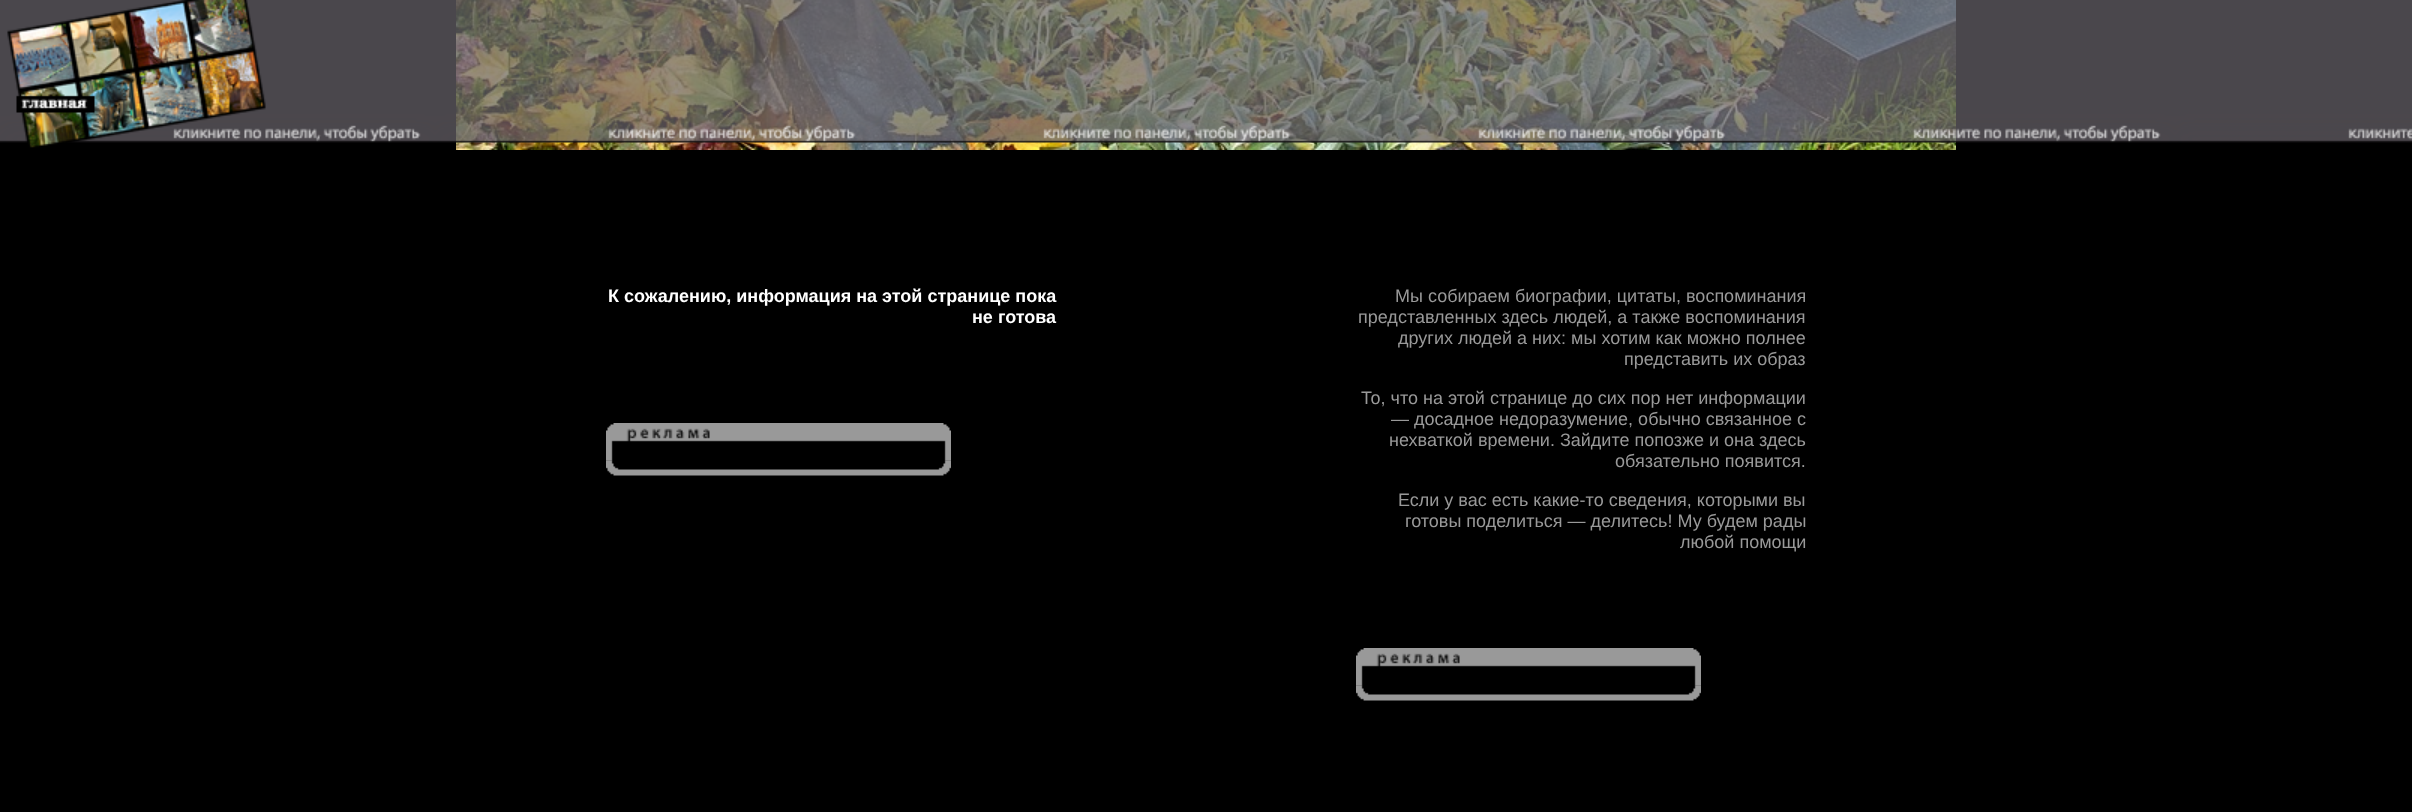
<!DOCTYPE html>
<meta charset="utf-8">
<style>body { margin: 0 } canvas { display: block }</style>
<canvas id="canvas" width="2412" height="812"></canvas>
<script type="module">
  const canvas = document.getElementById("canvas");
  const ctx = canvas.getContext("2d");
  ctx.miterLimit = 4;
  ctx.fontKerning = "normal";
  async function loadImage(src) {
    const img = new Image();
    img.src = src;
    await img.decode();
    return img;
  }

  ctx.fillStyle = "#000000";
  ctx.fillRect(0, 0, 2412, 812);
  ctx.drawImage(await loadImage("img3.png"), 456, 0, 1500, 150);
  ctx.drawImage(await loadImage("img1.png"), 0, 0, 2412, 143);
  ctx.drawImage(await loadImage("img2.png"), 7, 0, 259, 148);
  ctx.font = "bold 18px Liberation Sans";
  ctx.fillStyle = "#ffffff";
  ctx.fillText("К сожалению, информация на этой странице пока", 608, 302);
  ctx.fillText("не готова", 972, 323);
  ctx.drawImage(await loadImage("img4.png"), 606, 423, 345, 38);
  ctx.drawImage(await loadImage("img5.png"), 606, 460, 345, 16);
  ctx.font = "18px Liberation Sans";
  ctx.fillStyle = "#999999";
  ctx.fillText("Мы собираем биографии, цитаты, воспоминания", 1395, 302);
  ctx.fillText("представленных здесь людей, а также воспоминания", 1358, 323);
  ctx.fillText("других людей а них: мы хотим как можно полнее", 1398, 344);
  ctx.fillText("представить их образ", 1624, 365);
  ctx.fillText("То, что на этой странице до сих пор нет информации", 1361, 404);
  ctx.fillText("— досадное недоразумение, обычно связанное с", 1391, 425);
  ctx.fillText("нехваткой времени. Зайдите попозже и она здесь", 1389, 446);
  ctx.fillText("обязательно появится.", 1615, 467);
  ctx.fillText("Если у вас есть какие-то сведения, которыми вы", 1398, 506);
  ctx.fillText("готовы поделиться — делитесь! Му будем рады", 1405, 527);
  ctx.fillText("любой помощи", 1680, 548);
  ctx.drawImage(await loadImage("img6.png"), 1356, 648, 345, 38);
  ctx.drawImage(await loadImage("img7.png"), 1356, 685, 345, 16);
</script>
